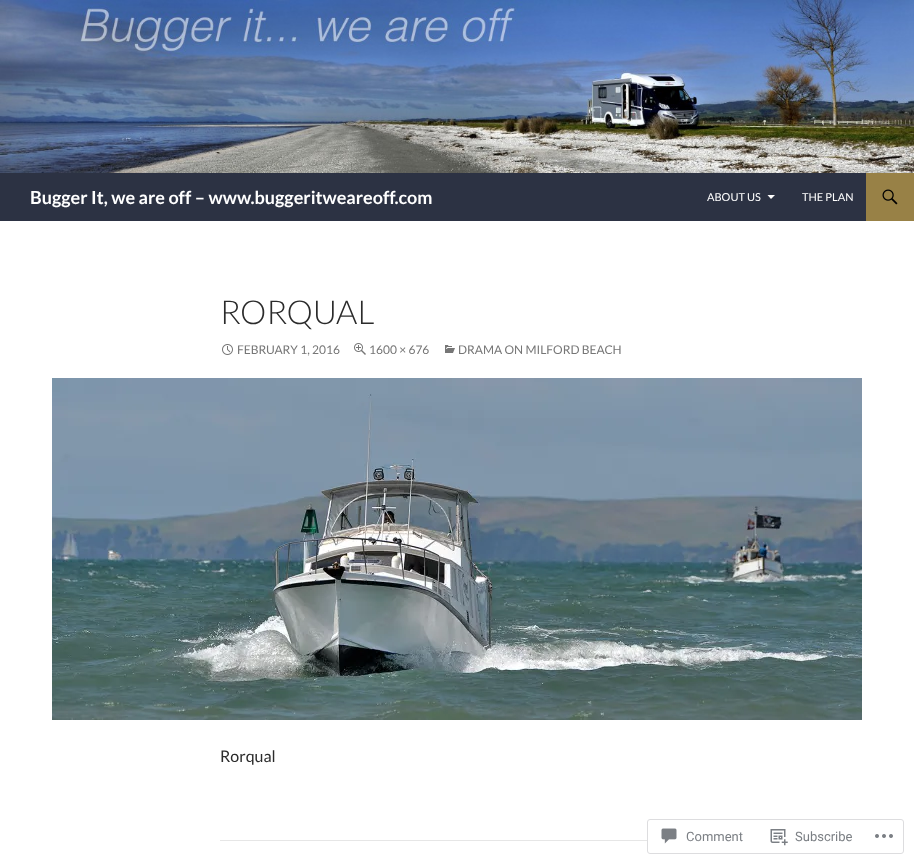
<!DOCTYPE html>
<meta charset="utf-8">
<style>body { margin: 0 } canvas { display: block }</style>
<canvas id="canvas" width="914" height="864"></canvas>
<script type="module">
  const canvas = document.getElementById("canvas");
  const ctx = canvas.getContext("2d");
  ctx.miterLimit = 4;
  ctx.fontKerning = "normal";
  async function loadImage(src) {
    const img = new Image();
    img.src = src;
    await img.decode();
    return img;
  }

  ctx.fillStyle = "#ffffff";
  ctx.fillRect(0, 0, 914, 864);
  ctx.drawImage(await loadImage("img1.png"), 0, 0, 914, 173);
  ctx.fillStyle = "#2c3243";
  ctx.fillRect(0, 173, 866, 48);
  ctx.font = "bold 18px Lato";
  ctx.fillStyle = "#ffffff";
  ctx.fillText("Bugger It, we are off – www.buggeritweareoff.com", 30, 204);
  ctx.font = "11px Lato";
  ctx.fillText("ABOUT US", 707, 201);
  ctx.beginPath();
  ctx.moveTo(767.5, 195);
  ctx.lineTo(775, 195);
  ctx.lineTo(771, 199);
  ctx.closePath();
  ctx.fill();
  ctx.fillText("THE PLAN", 802, 201);
  ctx.fillStyle = "#988146";
  ctx.fillRect(866, 173, 48, 48);
  ctx.drawImage(await loadImage("img2.png"), 882, 189, 16, 16);
  ctx.font = "300 33px Lato";
  ctx.fillStyle = "#2b2b2b";
  ctx.fillText("RORQUAL", 220, 324);
  ctx.drawImage(await loadImage("img3.png"), 222, 344, 11, 11);
  ctx.font = "12px Lato";
  ctx.fillStyle = "#767676";
  ctx.fillText("FEBRUARY 1, 2016", 237, 354);
  ctx.drawImage(await loadImage("img4.png"), 354, 343, 12, 12);
  ctx.fillText("1600 × 676", 369, 354);
  ctx.drawImage(await loadImage("img5.png"), 445, 345, 10, 8);
  ctx.fillText("DRAMA ON MILFORD BEACH", 458, 354);
  ctx.drawImage(await loadImage("img6.png"), 52, 378, 810, 342);
  ctx.font = "16px Lato";
  ctx.fillStyle = "#2b2b2b";
  ctx.fillText("Rorqual", 220, 762);
  ctx.fillStyle = "#e6e6e6";
  ctx.fillRect(220, 840, 474, 1);
  ctx.fillStyle = "rgba(255, 255, 255, 0.98)";
  ctx.beginPath();
  ctx.roundRect(647.5, 819.5, 256, 34, 2.5);
  ctx.fill();
  ctx.strokeStyle = "#dddddf";
  ctx.stroke();
  ctx.drawImage(await loadImage("img7.png"), 661, 828, 16, 16);
  ctx.font = "13px Roboto";
  ctx.fillStyle = "#7b7f84";
  ctx.fillText("Comment", 686, 841);
  ctx.drawImage(await loadImage("img8.png"), 770, 829, 18, 17);
  ctx.fillText("Subscribe", 795, 841);
  ctx.drawImage(await loadImage("img9.png"), 875, 834, 18, 4);
</script>
